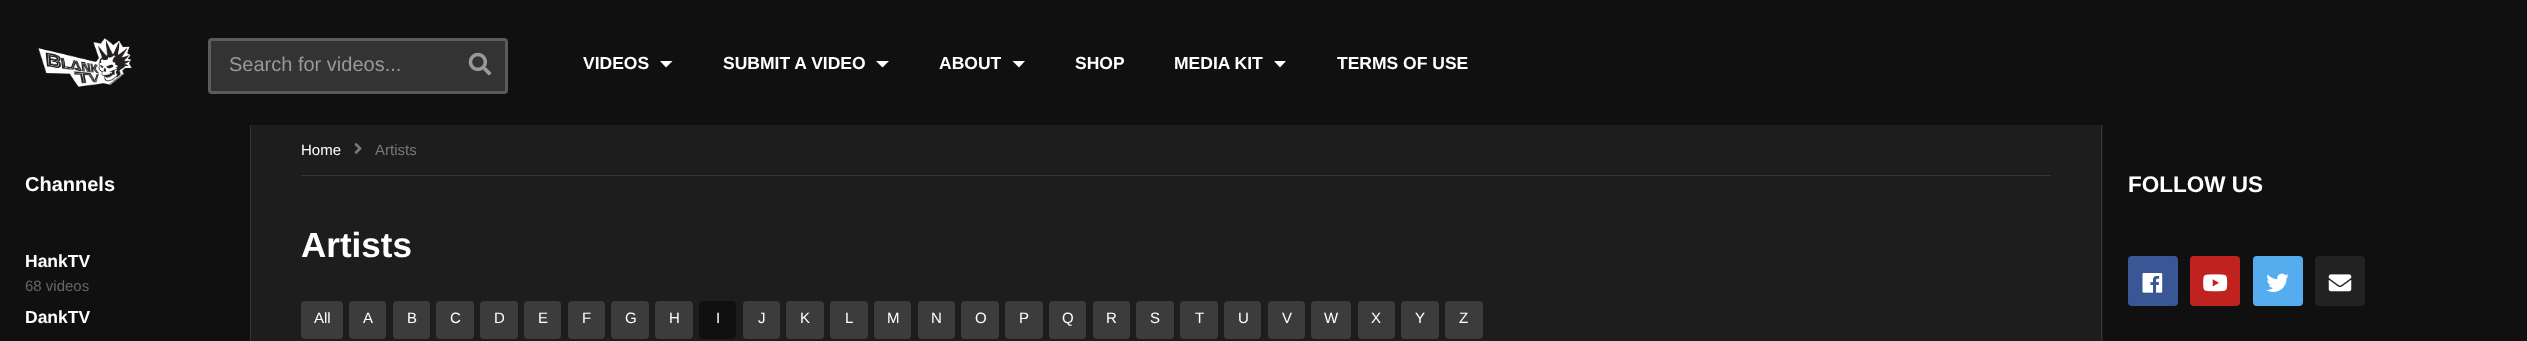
<!DOCTYPE html>
<meta charset="utf-8">
<style>body { margin: 0 } canvas { display: block }</style>
<canvas id="canvas" width="2527" height="341"></canvas>
<script type="module">
  const canvas = document.getElementById("canvas");
  const ctx = canvas.getContext("2d");
  ctx.miterLimit = 4;
  ctx.fontKerning = "normal";
  async function loadImage(src) {
    const img = new Image();
    img.src = src;
    await img.decode();
    return img;
  }

  ctx.fillStyle = "#101010";
  ctx.fillRect(0, 0, 2527, 341);
  ctx.drawImage(await loadImage("img1.png"), 38, 38, 94, 49);
  ctx.fillStyle = "#333333";
  ctx.beginPath();
  ctx.roundRect(208, 38, 300, 56, 4);
  ctx.fill();
  ctx.beginPath();
  ctx.roundRect(209.5, 39.5, 297, 53, 2.5);
  ctx.strokeStyle = "rgba(255, 255, 255, 0.2)";
  ctx.lineWidth = 3;
  ctx.stroke();
  ctx.font = "20px Liberation Sans";
  ctx.fillStyle = "#999999";
  ctx.fillText("Search for videos...", 229, 71);
  ctx.drawImage(await loadImage("img2.png"), 468, 52, 24, 24);
  ctx.font = "bold 17.5px Liberation Sans";
  ctx.fillStyle = "#ffffff";
  ctx.fillText("VIDEOS", 583, 69);
  ctx.beginPath();
  ctx.moveTo(660, 61);
  ctx.lineTo(672.5, 61);
  ctx.lineTo(666, 67.5);
  ctx.closePath();
  ctx.fill();
  ctx.fillText("SUBMIT A VIDEO", 723, 69);
  ctx.beginPath();
  ctx.moveTo(876, 61);
  ctx.lineTo(889, 61);
  ctx.lineTo(882.5, 67.5);
  ctx.closePath();
  ctx.fill();
  ctx.fillText("ABOUT", 939, 69);
  ctx.beginPath();
  ctx.moveTo(1012.5, 61);
  ctx.lineTo(1025, 61);
  ctx.lineTo(1019, 67.5);
  ctx.closePath();
  ctx.fill();
  ctx.fillText("SHOP", 1075, 69);
  ctx.fillText("MEDIA KIT", 1174, 69);
  ctx.beginPath();
  ctx.moveTo(1274, 61);
  ctx.lineTo(1286, 61);
  ctx.lineTo(1280, 67.5);
  ctx.closePath();
  ctx.fill();
  ctx.fillText("TERMS OF USE", 1337, 69);
  ctx.font = "bold 20px Liberation Sans";
  ctx.fillText("Channels", 25, 191);
  ctx.font = "bold 17.5px Liberation Sans";
  ctx.fillText("HankTV", 25, 267);
  ctx.font = "15px Liberation Sans";
  ctx.fillStyle = "#666666";
  ctx.fillText("68 videos", 25, 291);
  ctx.font = "bold 17.5px Liberation Sans";
  ctx.fillStyle = "#ffffff";
  ctx.fillText("DankTV", 25, 323);
  ctx.fillStyle = "#1d1d1d";
  ctx.fillRect(251, 125, 1852, 216);
  ctx.fillStyle = "#363636";
  ctx.fillRect(2101, 125, 1, 216);
  ctx.fillRect(250, 125, 1, 216);
  ctx.fillRect(301, 175, 1750, 1);
  ctx.font = "15px Liberation Sans";
  ctx.fillStyle = "#ffffff";
  ctx.fillText("Home", 301, 155);
  ctx.drawImage(await loadImage("img3.png"), 354, 143, 8, 11);
  ctx.fillStyle = "#787878";
  ctx.fillText("Artists", 375, 155);
  ctx.font = "bold 35px Liberation Sans";
  ctx.fillStyle = "#ffffff";
  ctx.fillText("Artists", 301, 257);
  ctx.fillStyle = "#3c3c3c";
  ctx.beginPath();
  ctx.roundRect(301, 301, 42, 38, 4);
  ctx.fill();
  ctx.font = "15px Liberation Sans";
  ctx.fillStyle = "#ffffff";
  ctx.fillText("All", 314, 323);
  ctx.fillStyle = "#3c3c3c";
  ctx.beginPath();
  ctx.roundRect(349, 301, 37, 38, 4);
  ctx.fill();
  ctx.fillStyle = "#ffffff";
  ctx.fillText("A", 363, 323);
  ctx.fillStyle = "#3c3c3c";
  ctx.beginPath();
  ctx.roundRect(393, 301, 37, 38, 4);
  ctx.fill();
  ctx.fillStyle = "#ffffff";
  ctx.fillText("B", 407, 323);
  ctx.fillStyle = "#3c3c3c";
  ctx.beginPath();
  ctx.roundRect(436, 301, 38, 38, 4);
  ctx.fill();
  ctx.fillStyle = "#ffffff";
  ctx.fillText("C", 450, 323);
  ctx.fillStyle = "#3c3c3c";
  ctx.beginPath();
  ctx.roundRect(480, 301, 38, 38, 4);
  ctx.fill();
  ctx.fillStyle = "#ffffff";
  ctx.fillText("D", 494, 323);
  ctx.fillStyle = "#3c3c3c";
  ctx.beginPath();
  ctx.roundRect(524, 301, 37, 38, 4);
  ctx.fill();
  ctx.fillStyle = "#ffffff";
  ctx.fillText("E", 538, 323);
  ctx.fillStyle = "#3c3c3c";
  ctx.beginPath();
  ctx.roundRect(568, 301, 37, 38, 4);
  ctx.fill();
  ctx.fillStyle = "#ffffff";
  ctx.fillText("F", 582, 323);
  ctx.fillStyle = "#3c3c3c";
  ctx.beginPath();
  ctx.roundRect(611, 301, 38, 38, 4);
  ctx.fill();
  ctx.fillStyle = "#ffffff";
  ctx.fillText("G", 625, 323);
  ctx.fillStyle = "#3c3c3c";
  ctx.beginPath();
  ctx.roundRect(655, 301, 38, 38, 4);
  ctx.fill();
  ctx.fillStyle = "#ffffff";
  ctx.fillText("H", 669, 323);
  ctx.fillStyle = "#101010";
  ctx.beginPath();
  ctx.roundRect(699, 301, 37, 38, 4);
  ctx.fill();
  ctx.fillStyle = "#ffffff";
  ctx.fillText("I", 716, 323);
  ctx.fillStyle = "#3c3c3c";
  ctx.beginPath();
  ctx.roundRect(743, 301, 37, 38, 4);
  ctx.fill();
  ctx.fillStyle = "#ffffff";
  ctx.fillText("J", 758, 323);
  ctx.fillStyle = "#3c3c3c";
  ctx.beginPath();
  ctx.roundRect(786, 301, 38, 38, 4);
  ctx.fill();
  ctx.fillStyle = "#ffffff";
  ctx.fillText("K", 800, 323);
  ctx.fillStyle = "#3c3c3c";
  ctx.beginPath();
  ctx.roundRect(830, 301, 38, 38, 4);
  ctx.fill();
  ctx.fillStyle = "#ffffff";
  ctx.fillText("L", 845, 323);
  ctx.fillStyle = "#3c3c3c";
  ctx.beginPath();
  ctx.roundRect(874, 301, 37, 38, 4);
  ctx.fill();
  ctx.fillStyle = "#ffffff";
  ctx.fillText("M", 887, 323);
  ctx.fillStyle = "#3c3c3c";
  ctx.beginPath();
  ctx.roundRect(918, 301, 37, 38, 4);
  ctx.fill();
  ctx.fillStyle = "#ffffff";
  ctx.fillText("N", 931, 323);
  ctx.fillStyle = "#3c3c3c";
  ctx.beginPath();
  ctx.roundRect(961, 301, 38, 38, 4);
  ctx.fill();
  ctx.fillStyle = "#ffffff";
  ctx.fillText("O", 975, 323);
  ctx.fillStyle = "#3c3c3c";
  ctx.beginPath();
  ctx.roundRect(1005, 301, 38, 38, 4);
  ctx.fill();
  ctx.fillStyle = "#ffffff";
  ctx.fillText("P", 1019, 323);
  ctx.fillStyle = "#3c3c3c";
  ctx.beginPath();
  ctx.roundRect(1049, 301, 37, 38, 4);
  ctx.fill();
  ctx.fillStyle = "#ffffff";
  ctx.fillText("Q", 1062, 323);
  ctx.fillStyle = "#3c3c3c";
  ctx.beginPath();
  ctx.roundRect(1093, 301, 37, 38, 4);
  ctx.fill();
  ctx.fillStyle = "#ffffff";
  ctx.fillText("R", 1106, 323);
  ctx.fillStyle = "#3c3c3c";
  ctx.beginPath();
  ctx.roundRect(1136, 301, 38, 38, 4);
  ctx.fill();
  ctx.fillStyle = "#ffffff";
  ctx.fillText("S", 1150, 323);
  ctx.fillStyle = "#3c3c3c";
  ctx.beginPath();
  ctx.roundRect(1180, 301, 38, 38, 4);
  ctx.fill();
  ctx.fillStyle = "#ffffff";
  ctx.fillText("T", 1195, 323);
  ctx.fillStyle = "#3c3c3c";
  ctx.beginPath();
  ctx.roundRect(1224, 301, 37, 38, 4);
  ctx.fill();
  ctx.fillStyle = "#ffffff";
  ctx.fillText("U", 1238, 323);
  ctx.fillStyle = "#3c3c3c";
  ctx.beginPath();
  ctx.roundRect(1268, 301, 37, 38, 4);
  ctx.fill();
  ctx.fillStyle = "#ffffff";
  ctx.fillText("V", 1282, 323);
  ctx.fillStyle = "#3c3c3c";
  ctx.beginPath();
  ctx.roundRect(1311, 301, 40, 38, 4);
  ctx.fill();
  ctx.fillStyle = "#ffffff";
  ctx.fillText("W", 1324, 323);
  ctx.fillStyle = "#3c3c3c";
  ctx.beginPath();
  ctx.roundRect(1358, 301, 37, 38, 4);
  ctx.fill();
  ctx.fillStyle = "#ffffff";
  ctx.fillText("X", 1371, 323);
  ctx.fillStyle = "#3c3c3c";
  ctx.beginPath();
  ctx.roundRect(1401, 301, 38, 38, 4);
  ctx.fill();
  ctx.fillStyle = "#ffffff";
  ctx.fillText("Y", 1415, 323);
  ctx.fillStyle = "#3c3c3c";
  ctx.beginPath();
  ctx.roundRect(1445, 301, 38, 38, 4);
  ctx.fill();
  ctx.fillStyle = "#ffffff";
  ctx.fillText("Z", 1459, 323);
  ctx.font = "bold 22.5px Liberation Sans";
  ctx.fillText("FOLLOW US", 2128, 192);
  ctx.fillStyle = "#3a5795";
  ctx.beginPath();
  ctx.roundRect(2128, 256, 50, 50, 4);
  ctx.fill();
  ctx.drawImage(await loadImage("img4.png"), 2142, 273, 21, 20);
  ctx.fillStyle = "#bf221f";
  ctx.beginPath();
  ctx.roundRect(2190, 256, 50, 50, 4);
  ctx.fill();
  ctx.drawImage(await loadImage("img5.png"), 2203, 274, 25, 18);
  ctx.fillStyle = "#55acee";
  ctx.beginPath();
  ctx.roundRect(2253, 256, 50, 50, 4);
  ctx.fill();
  ctx.drawImage(await loadImage("img6.png"), 2266, 273, 23, 19);
  ctx.fillStyle = "#222222";
  ctx.beginPath();
  ctx.roundRect(2315, 256, 50, 50, 4);
  ctx.fill();
  ctx.drawImage(await loadImage("img7.png"), 2328, 274, 24, 18);
</script>
